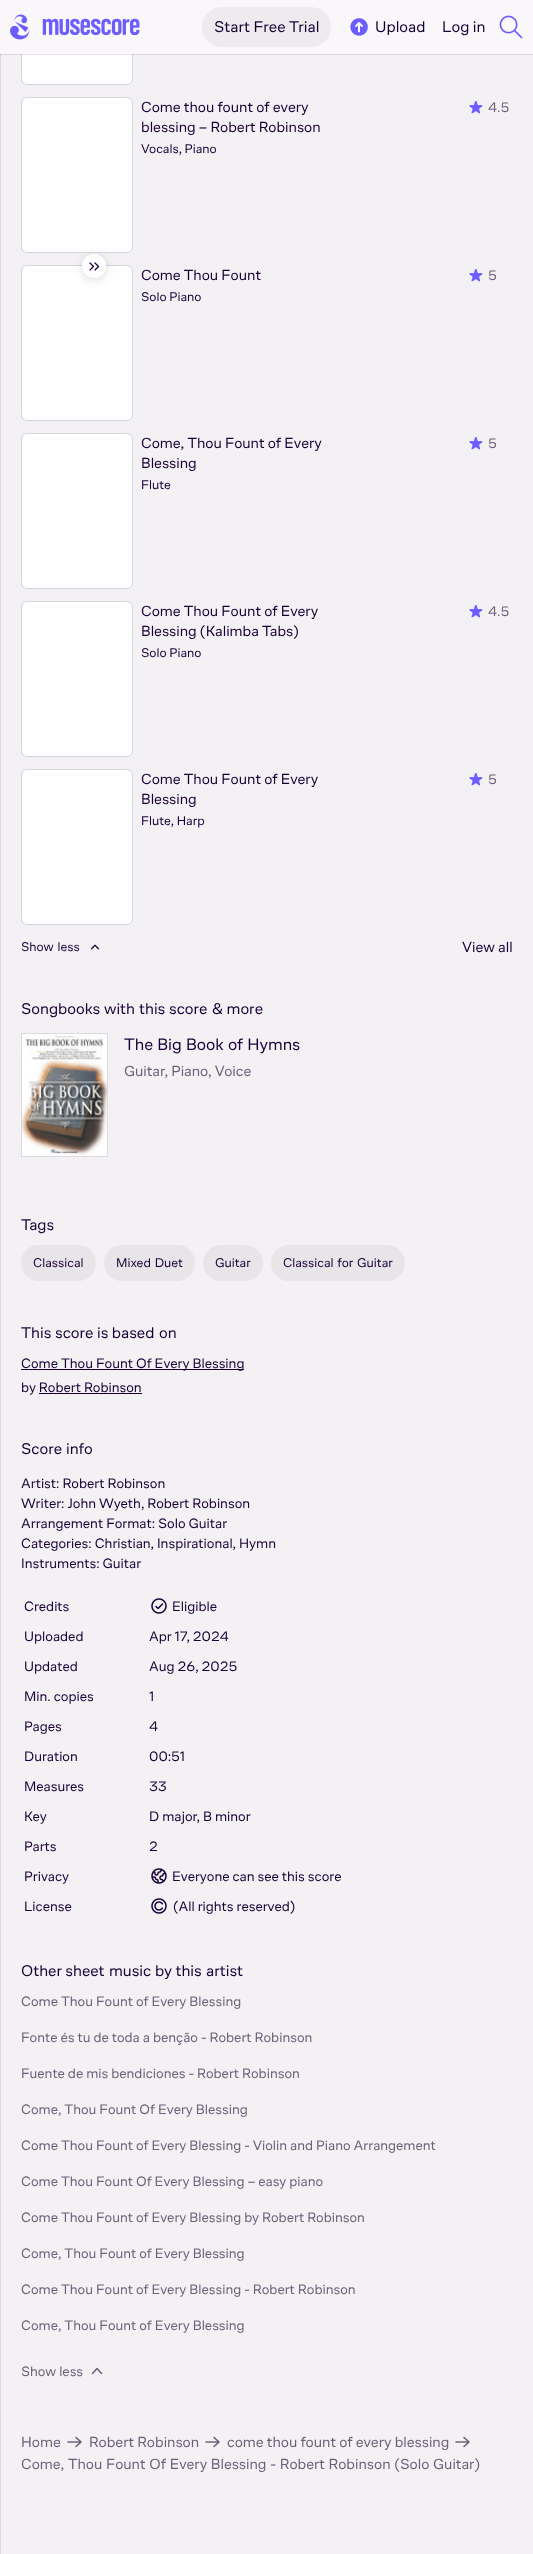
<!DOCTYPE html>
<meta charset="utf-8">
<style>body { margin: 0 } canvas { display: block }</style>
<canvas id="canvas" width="533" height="2554"></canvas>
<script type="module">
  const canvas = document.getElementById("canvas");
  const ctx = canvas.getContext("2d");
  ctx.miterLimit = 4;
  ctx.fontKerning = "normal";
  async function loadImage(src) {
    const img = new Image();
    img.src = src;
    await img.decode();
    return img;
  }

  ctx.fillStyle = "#f3f1f4";
  ctx.fillRect(0, 0, 533, 2554);
  ctx.fillStyle = "#ddd9e1";
  ctx.fillRect(0, 54, 1, 2500);
  ctx.fillStyle = "#ffffff";
  ctx.beginPath();
  ctx.roundRect(21.5, -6.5, 111, 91, 5.5);
  ctx.fill();
  ctx.strokeStyle = "#d2d6dc";
  ctx.stroke();
  ctx.fillStyle = "rgba(24, 0, 54, 0.1)";
  ctx.fillRect(0, 54, 533, 1);
  ctx.fillStyle = "#f9f7fa";
  ctx.fillRect(0, 0, 533, 54);
  ctx.drawImage(await loadImage("img1.png"), 10, 14, 130, 26);
  ctx.fillStyle = "#edebee";
  ctx.beginPath();
  ctx.roundRect(202, 7, 129, 40, 20);
  ctx.fill();
  ctx.font = "16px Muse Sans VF";
  ctx.fillStyle = "#180036";
  ctx.fillText("Start Free Trial", 214, 32);
  ctx.drawImage(await loadImage("img2.png"), 350, 18, 18, 18);
  ctx.fillText("Upload", 375, 32);
  ctx.fillText("Log in", 442, 32);
  ctx.drawImage(await loadImage("img3.png"), 499, 15, 24, 24);
  ctx.fillStyle = "#ffffff";
  ctx.beginPath();
  ctx.roundRect(21.5, 97.5, 111, 155, 5.5);
  ctx.fill();
  ctx.stroke();
  ctx.font = "15px Muse Sans VF";
  ctx.fillStyle = "#180036";
  ctx.fillText("Come thou fount of every", 141, 112);
  ctx.fillText("blessing – Robert Robinson", 141, 132);
  ctx.font = "13px Muse Sans VF";
  ctx.fillText("Vocals, Piano", 141, 153);
  ctx.drawImage(await loadImage("img4.png"), 469, 101, 14, 13);
  ctx.font = "14px Muse Sans VF";
  ctx.fillStyle = "#6e5f79";
  ctx.fillText("4.5", 488, 112);
  ctx.fillStyle = "#ffffff";
  ctx.beginPath();
  ctx.roundRect(21.5, 265.5, 111, 155, 5.5);
  ctx.fill();
  ctx.stroke();
  ctx.font = "15px Muse Sans VF";
  ctx.fillStyle = "#180036";
  ctx.fillText("Come Thou Fount", 141, 280);
  ctx.font = "13px Muse Sans VF";
  ctx.fillText("Solo Piano", 141, 301);
  ctx.drawImage(await loadImage("img4.png"), 469, 269, 14, 13);
  ctx.font = "14px Muse Sans VF";
  ctx.fillStyle = "#6e5f79";
  ctx.fillText("5", 488, 280);
  ctx.fillStyle = "#ffffff";
  ctx.beginPath();
  ctx.roundRect(21.5, 433.5, 111, 155, 5.5);
  ctx.fill();
  ctx.stroke();
  ctx.font = "15px Muse Sans VF";
  ctx.fillStyle = "#180036";
  ctx.fillText("Come, Thou Fount of Every", 141, 448);
  ctx.fillText("Blessing", 141, 468);
  ctx.font = "13px Muse Sans VF";
  ctx.fillText("Flute", 141, 489);
  ctx.drawImage(await loadImage("img4.png"), 469, 437, 14, 13);
  ctx.font = "14px Muse Sans VF";
  ctx.fillStyle = "#6e5f79";
  ctx.fillText("5", 488, 448);
  ctx.fillStyle = "#ffffff";
  ctx.beginPath();
  ctx.roundRect(21.5, 601.5, 111, 155, 5.5);
  ctx.fill();
  ctx.stroke();
  ctx.font = "15px Muse Sans VF";
  ctx.fillStyle = "#180036";
  ctx.fillText("Come Thou Fount of Every", 141, 616);
  ctx.fillText("Blessing (Kalimba Tabs)", 141, 636);
  ctx.font = "13px Muse Sans VF";
  ctx.fillText("Solo Piano", 141, 657);
  ctx.drawImage(await loadImage("img4.png"), 469, 605, 14, 13);
  ctx.font = "14px Muse Sans VF";
  ctx.fillStyle = "#6e5f79";
  ctx.fillText("4.5", 488, 616);
  ctx.fillStyle = "#ffffff";
  ctx.beginPath();
  ctx.roundRect(21.5, 769.5, 111, 155, 5.5);
  ctx.fill();
  ctx.stroke();
  ctx.font = "15px Muse Sans VF";
  ctx.fillStyle = "#180036";
  ctx.fillText("Come Thou Fount of Every", 141, 784);
  ctx.fillText("Blessing", 141, 804);
  ctx.font = "13px Muse Sans VF";
  ctx.fillText("Flute, Harp", 141, 825);
  ctx.drawImage(await loadImage("img4.png"), 469, 773, 14, 13);
  ctx.font = "14px Muse Sans VF";
  ctx.fillStyle = "#6e5f79";
  ctx.fillText("5", 488, 784);
  ctx.wordSpacing = "1px";
  ctx.font = "13px Muse Sans VF";
  ctx.fillStyle = "#180036";
  ctx.fillText("Show less", 21, 951);
  ctx.drawImage(await loadImage("img5.png"), 90, 944, 10, 6);
  ctx.wordSpacing = "0px";
  ctx.font = "15px Muse Sans VF";
  ctx.fillText("View all", 462, 952);
  ctx.font = "16px Muse Sans VF";
  ctx.fillText("Songbooks", 21, 1014);
  ctx.fillText("with", 104, 1014);
  ctx.fillText("this", 139, 1014);
  ctx.fillText("score", 169, 1014);
  ctx.fillText("& more", 212, 1014);
  ctx.strokeStyle = "#ddd9e1";
  ctx.strokeRect(21.5, 1033.5, 86, 123);
  ctx.drawImage(await loadImage("img6.png"), 22, 1034, 85, 122);
  ctx.wordSpacing = "0.5px";
  ctx.font = "17px Muse Sans VF";
  ctx.fillText("The Big Book of Hymns", 124, 1050);
  ctx.wordSpacing = "0px";
  ctx.font = "15px Muse Sans VF";
  ctx.fillStyle = "#6e5f79";
  ctx.fillText("Guitar, Piano, Voice", 124, 1076);
  ctx.font = "16px Muse Sans VF";
  ctx.fillStyle = "#180036";
  ctx.fillText("Tags", 21, 1230);
  ctx.fillStyle = "#e7e5e8";
  ctx.beginPath();
  ctx.roundRect(21, 1245, 75, 36, 18);
  ctx.fill();
  ctx.font = "13px Muse Sans VF";
  ctx.fillStyle = "#180036";
  ctx.fillText("Classical", 33, 1267);
  ctx.fillStyle = "#e7e5e8";
  ctx.beginPath();
  ctx.roundRect(104, 1245, 91, 36, 18);
  ctx.fill();
  ctx.wordSpacing = "1px";
  ctx.fillStyle = "#180036";
  ctx.fillText("Mixed Duet", 116, 1267);
  ctx.fillStyle = "#e7e5e8";
  ctx.beginPath();
  ctx.roundRect(203, 1245, 60, 36, 18);
  ctx.fill();
  ctx.wordSpacing = "0px";
  ctx.fillStyle = "#180036";
  ctx.fillText("Guitar", 215, 1267);
  ctx.fillStyle = "#e7e5e8";
  ctx.beginPath();
  ctx.roundRect(271, 1245, 134, 36, 18);
  ctx.fill();
  ctx.wordSpacing = "1px";
  ctx.fillStyle = "#180036";
  ctx.fillText("Classical for Guitar", 283, 1267);
  ctx.wordSpacing = "0px";
  ctx.font = "16px Muse Sans VF";
  ctx.fillText("This", 21, 1338);
  ctx.fillText("score", 55, 1338);
  ctx.fillText("is based", 97, 1338);
  ctx.fillText("on", 159, 1338);
  ctx.fillRect(21, 1369, 223, 1);
  ctx.font = "14px Muse Sans VF";
  ctx.fillText("Come Thou Fount Of Every Blessing", 21, 1368);
  ctx.fillText("by Robert Robinson", 21, 1392);
  ctx.fillRect(39, 1393, 103, 1);
  ctx.font = "16px Muse Sans VF";
  ctx.fillText("Score", 21, 1454);
  ctx.fillText("info", 66, 1454);
  ctx.font = "14px Muse Sans VF";
  ctx.fillText("Artist: Robert Robinson", 21, 1488);
  ctx.fillText("Writer: John Wyeth, Robert Robinson", 21, 1508);
  ctx.fillText("Arrangement Format: Solo Guitar", 21, 1528);
  ctx.fillText("Categories: Christian, Inspirational, Hymn", 21, 1548);
  ctx.fillText("Instruments: Guitar", 21, 1568);
  ctx.fillText("Credits", 24, 1611);
  ctx.drawImage(await loadImage("img7.png"), 151, 1598, 16, 16);
  ctx.fillText("Eligible", 172, 1611);
  ctx.fillText("Uploaded", 24, 1641);
  ctx.fillText("Apr 17, 2024", 149, 1641);
  ctx.fillText("Updated", 24, 1671);
  ctx.fillText("Aug 26, 2025", 149, 1671);
  ctx.fillText("Min. copies", 24, 1701);
  ctx.fillText("1", 149, 1701);
  ctx.fillText("Pages", 24, 1731);
  ctx.fillText("4", 149, 1731);
  ctx.fillText("Duration", 24, 1761);
  ctx.fillText("00:51", 149, 1761);
  ctx.fillText("Measures", 24, 1791);
  ctx.fillText("33", 149, 1791);
  ctx.fillText("Key", 24, 1821);
  ctx.fillText("D major, B minor", 149, 1821);
  ctx.fillText("Parts", 24, 1851);
  ctx.fillText("2", 149, 1851);
  ctx.fillText("Privacy", 24, 1881);
  ctx.drawImage(await loadImage("img8.png"), 151, 1868, 16, 16);
  ctx.fillText("Everyone can see this score", 172, 1881);
  ctx.fillText("License", 24, 1911);
  ctx.drawImage(await loadImage("img9.png"), 151, 1898, 16, 16);
  ctx.fillText("(All rights reserved)", 173, 1911);
  ctx.font = "16px Muse Sans VF";
  ctx.fillText("Other sheet", 21, 1976);
  ctx.fillText("music", 109, 1976);
  ctx.fillText("by this", 155, 1976);
  ctx.fillText("artist", 206, 1976);
  ctx.font = "14px Muse Sans VF";
  ctx.fillStyle = "#6e5f79";
  ctx.fillText("Come Thou Fount of Every Blessing", 21, 2006);
  ctx.fillText("Fonte és tu de toda a benção - Robert Robinson", 21, 2042);
  ctx.fillText("Fuente de mis bendiciones - Robert Robinson", 21, 2078);
  ctx.fillText("Come, Thou Fount Of Every Blessing", 21, 2114);
  ctx.fillText("Come Thou Fount of Every Blessing - Violin and Piano Arrangement", 21, 2150);
  ctx.fillText("Come Thou Fount Of Every Blessing – easy piano", 21, 2186);
  ctx.fillText("Come Thou Fount of Every Blessing by Robert Robinson", 21, 2222);
  ctx.fillText("Come, Thou Fount of Every Blessing", 21, 2258);
  ctx.fillText("Come Thou Fount of Every Blessing - Robert Robinson", 21, 2294);
  ctx.fillText("Come, Thou Fount of Every Blessing", 21, 2330);
  ctx.fillText("Show less", 21, 2376);
  ctx.drawImage(await loadImage("img10.png"), 91, 2367, 12, 8);
  ctx.font = "15px Muse Sans VF";
  ctx.fillText("Home", 21, 2447);
  ctx.drawImage(await loadImage("img11.png"), 67, 2436, 15, 12);
  ctx.fillText("Robert Robinson", 89, 2447);
  ctx.drawImage(await loadImage("img11.png"), 205, 2436, 15, 12);
  ctx.fillText("come thou fount of every blessing", 227, 2447);
  ctx.drawImage(await loadImage("img11.png"), 455, 2436, 15, 12);
  ctx.wordSpacing = "0.5px";
  ctx.fillText("Come, Thou Fount Of Every Blessing - Robert Robinson (Solo Guitar)", 21, 2469);
  ctx.fillStyle = "rgba(0, 0, 0, 0.14)";
  ctx.filter = "blur(5px)";
  ctx.beginPath();
  ctx.roundRect(82, 256, 24, 24, 12);
  ctx.fill();
  ctx.filter = "none";
  ctx.fillStyle = "#ffffff";
  ctx.beginPath();
  ctx.arc(94, 266, 12, 0, Math.PI * 2);
  ctx.fill();
  ctx.drawImage(await loadImage("img12.png"), 89, 262, 11, 9);
</script>
